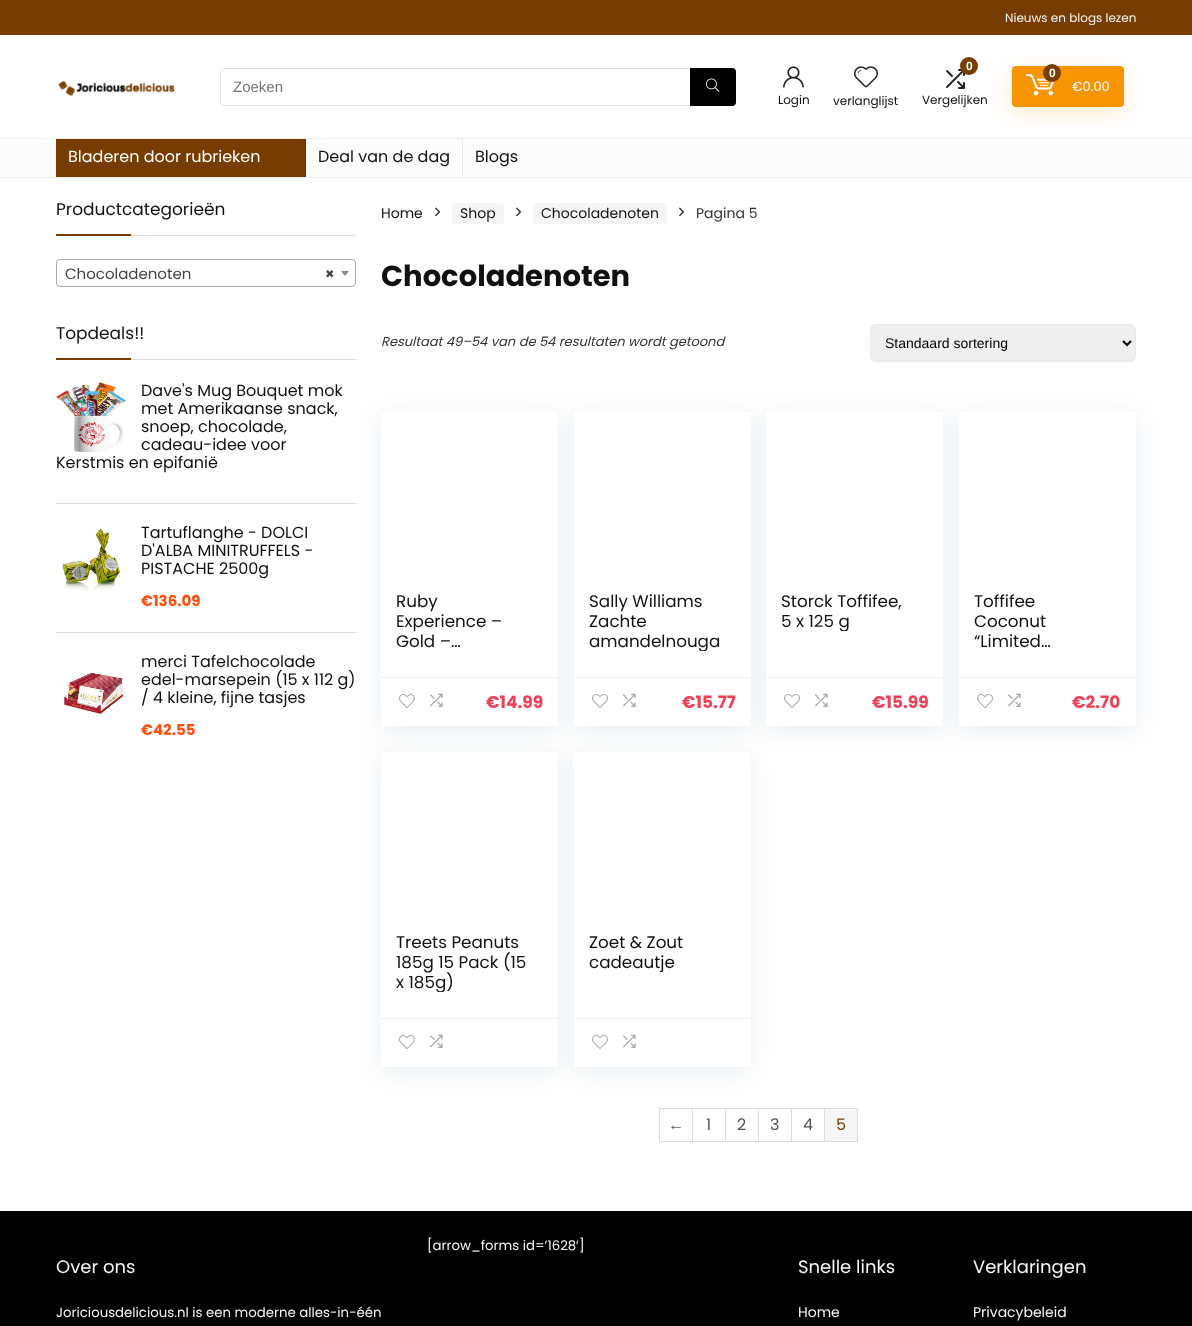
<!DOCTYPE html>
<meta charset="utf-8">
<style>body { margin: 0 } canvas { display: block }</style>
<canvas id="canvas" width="1192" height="1326"></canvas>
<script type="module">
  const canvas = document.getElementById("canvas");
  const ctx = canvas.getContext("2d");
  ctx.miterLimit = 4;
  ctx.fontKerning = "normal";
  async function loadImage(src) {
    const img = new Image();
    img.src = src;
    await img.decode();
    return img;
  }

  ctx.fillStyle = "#ffffff";
  ctx.fillRect(0, 0, 1192, 1326);
  ctx.fillStyle = "#773d00";
  ctx.fillRect(0, 0, 1192, 35);
  ctx.save();
  ctx.beginPath();
  ctx.rect(1005, 10, 131, 15);
  ctx.clip();
  ctx.font = "12px Poppins";
  ctx.fillStyle = "#f5f5f5";
  ctx.fillText("Nieuws en blogs lezen", 1005, 22);
  ctx.restore();
  ctx.drawImage(await loadImage("img1.png"), 58, 80, 117, 17);
  ctx.fillStyle = "#e1e1e1";
  ctx.beginPath();
  ctx.moveTo(224, 68);
  ctx.lineTo(690, 68);
  ctx.lineTo(690, 106);
  ctx.lineTo(224, 106);
  ctx.bezierCurveTo(222, 106, 220, 104, 220, 102);
  ctx.lineTo(220, 72);
  ctx.bezierCurveTo(220, 70, 222, 68, 224, 68);
  ctx.closePath();
  ctx.moveTo(224, 69);
  ctx.lineTo(690, 69);
  ctx.lineTo(690, 105);
  ctx.lineTo(224, 105);
  ctx.bezierCurveTo(222, 105, 221, 104, 221, 102);
  ctx.lineTo(221, 72);
  ctx.bezierCurveTo(221, 70, 222, 69, 224, 69);
  ctx.closePath();
  ctx.fill("evenodd");
  ctx.font = "15px Liberation Sans";
  ctx.fillStyle = "#757575";
  ctx.fillText("Zoeken", 233, 92);
  ctx.fillStyle = "#000000";
  ctx.beginPath();
  ctx.roundRect(690, 68, 46, 38, [0, 4, 4, 0]);
  ctx.fill();
  ctx.drawImage(await loadImage("img2.png"), 706, 78, 14, 14);
  ctx.drawImage(await loadImage("img3.png"), 946, 69, 19, 20);
  ctx.fillStyle = "#773d00";
  ctx.beginPath();
  ctx.arc(969, 66, 9, 0, Math.PI * 2);
  ctx.fill();
  ctx.font = "bold 12px Liberation Sans";
  ctx.fillStyle = "#ffffff";
  ctx.fillText("0", 966, 70);
  ctx.font = "12px Poppins";
  ctx.fillStyle = "#111111";
  ctx.fillText("Vergelijken", 922, 104);
  ctx.fillStyle = "#fcfcfc";
  ctx.fillRect(0, 139, 1192, 38);
  ctx.fillStyle = "#eeeeee";
  ctx.fillRect(0, 138, 1192, 1);
  ctx.fillStyle = "rgba(247, 148, 1, 0.2)";
  ctx.filter = "blur(9.5px)";
  ctx.beginPath();
  ctx.roundRect(1011, 72, 112, 41, 4);
  ctx.fill();
  ctx.filter = "none";
  ctx.fillStyle = "#f79401";
  ctx.beginPath();
  ctx.roundRect(1012, 66, 112, 41, 4);
  ctx.fill();
  ctx.drawImage(await loadImage("img4.png"), 1026, 74, 28, 22);
  ctx.fillStyle = "#773d00";
  ctx.beginPath();
  ctx.arc(1052, 73, 9, 0, Math.PI * 2);
  ctx.fill();
  ctx.font = "bold 12px Liberation Sans";
  ctx.fillStyle = "#ffffff";
  ctx.fillText("0", 1049, 77);
  ctx.font = "13px Poppins";
  ctx.fillText("€0.00", 1072, 91);
  ctx.drawImage(await loadImage("img5.png"), 783, 66, 21, 22);
  ctx.font = "12px Poppins";
  ctx.fillStyle = "#111111";
  ctx.fillText("Login", 778, 104);
  ctx.drawImage(await loadImage("img6.png"), 854, 66, 24, 22);
  ctx.fillText("verlanglijst", 833, 105);
  ctx.fillStyle = "#eeeeee";
  ctx.fillRect(0, 177, 1192, 1);
  ctx.fillStyle = "#773d00";
  ctx.fillRect(56, 139, 249, 38);
  ctx.fillStyle = "#6d3800";
  ctx.fillRect(305, 139, 1, 38);
  ctx.font = "16px Poppins";
  ctx.fillStyle = "#ffffff";
  ctx.fillText("Bladeren door rubrieken", 68, 162);
  ctx.fillStyle = "#e8e8e8";
  ctx.fillRect(462, 139, 1, 38);
  ctx.fillStyle = "#111111";
  ctx.fillText("Deal van de dag", 318, 162);
  ctx.fillText("Blogs", 475, 162);
  ctx.fillStyle = "#dddddd";
  ctx.fillRect(131, 235, 225, 1);
  ctx.font = "17px Poppins";
  ctx.fillStyle = "#111111";
  ctx.fillText("Productcategorieën", 56, 215);
  ctx.fillStyle = "#773d00";
  ctx.fillRect(56, 234, 75, 2);
  ctx.beginPath();
  ctx.roundRect(56.5, 259.5, 299, 27, 3.5);
  ctx.strokeStyle = "#aaaaaa";
  ctx.stroke();
  ctx.font = "15px Poppins";
  ctx.fillStyle = "#444444";
  ctx.fillText("Chocoladenoten", 65, 279);
  ctx.font = "bold 15px Poppins";
  ctx.fillText("×", 325, 279);
  ctx.fillStyle = "#888888";
  ctx.beginPath();
  ctx.moveTo(341, 271);
  ctx.lineTo(349, 271);
  ctx.lineTo(345, 276);
  ctx.closePath();
  ctx.fill();
  ctx.fillStyle = "#dddddd";
  ctx.fillRect(131, 359, 225, 1);
  ctx.font = "17px Poppins";
  ctx.fillStyle = "#111111";
  ctx.fillText("Topdeals!!", 56, 339);
  ctx.fillStyle = "#773d00";
  ctx.fillRect(56, 358, 75, 2);
  ctx.fillStyle = "#dddddd";
  ctx.fillRect(56, 503, 300, 1);
  ctx.drawImage(await loadImage("img7.png"), 56, 382, 70, 70);
  ctx.font = "16px Poppins";
  ctx.fillStyle = "#111111";
  ctx.fillText("Dave's Mug Bouquet mok", 141, 396);
  ctx.fillText("met Amerikaanse snack,", 141, 414);
  ctx.fillText("snoep, chocolade,", 141, 432);
  ctx.fillText("cadeau-idee voor", 141, 450);
  ctx.fillText("Kerstmis en epifanië", 56, 468);
  ctx.fillStyle = "#dddddd";
  ctx.fillRect(56, 632, 300, 1);
  ctx.drawImage(await loadImage("img8.png"), 62, 528, 59, 63);
  ctx.fillStyle = "#111111";
  ctx.fillText("Tartuflanghe - DOLCI", 141, 538);
  ctx.fillText("D'ALBA MINITRUFFELS -", 141, 556);
  ctx.fillText("PISTACHE 2500g", 141, 574);
  ctx.font = "bold 15px Poppins";
  ctx.fillStyle = "#ff4e0c";
  ctx.fillText("€136.09", 141, 606);
  ctx.font = "16px Poppins";
  ctx.fillStyle = "#111111";
  ctx.fillText("merci Tafelchocolade", 141, 667);
  ctx.drawImage(await loadImage("img9.png"), 64, 672, 59, 43);
  ctx.fillText("edel-marsepein (15 x 112 g)", 141, 685);
  ctx.fillText("/ 4 kleine, fijne tasjes", 141, 703);
  ctx.font = "bold 15px Poppins";
  ctx.fillStyle = "#ff4e0c";
  ctx.fillText("€42.55", 141, 735);
  ctx.font = "14px Poppins";
  ctx.fillStyle = "#111111";
  ctx.fillText("Home", 381, 218);
  ctx.drawImage(await loadImage("img10.png"), 435, 207, 6, 10);
  ctx.fillStyle = "#f5f5f5";
  ctx.beginPath();
  ctx.roundRect(452, 203, 52, 21, 3);
  ctx.fill();
  ctx.fillStyle = "#111111";
  ctx.fillText("Shop", 460, 218);
  ctx.drawImage(await loadImage("img10.png"), 516, 207, 6, 10);
  ctx.fillStyle = "#f5f5f5";
  ctx.beginPath();
  ctx.roundRect(533, 203, 134, 21, 3);
  ctx.fill();
  ctx.fillStyle = "#111111";
  ctx.fillText("Chocoladenoten", 541, 218);
  ctx.drawImage(await loadImage("img10.png"), 679, 207, 6, 10);
  ctx.fillStyle = "#333333";
  ctx.fillText("Pagina 5", 696, 218);
  ctx.font = "bold 29px Poppins";
  ctx.fillStyle = "#111111";
  ctx.fillText("Chocoladenoten", 381, 286);
  ctx.font = "italic 13px Poppins";
  ctx.fillStyle = "#333333";
  ctx.fillText("Resultaat 49–54 van de 54 resultaten wordt getoond", 381, 346);
  ctx.fillStyle = "#efefef";
  ctx.beginPath();
  ctx.roundRect(870.5, 324.5, 265, 37, 5.5);
  ctx.fill();
  ctx.strokeStyle = "#e8e8e8";
  ctx.stroke();
  ctx.beginPath();
  ctx.moveTo(1123, 341);
  ctx.lineTo(1127, 345);
  ctx.lineTo(1131, 341);
  ctx.strokeStyle = "#000000";
  ctx.lineWidth = 2;
  ctx.stroke();
  ctx.font = "14px Liberation Sans";
  ctx.fillStyle = "#000000";
  ctx.fillText("Standaard sortering", 885, 348);
  ctx.save();
  ctx.beginPath();
  ctx.moveTo(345, 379);
  ctx.lineTo(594, 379);
  ctx.lineTo(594, 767);
  ctx.lineTo(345, 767);
  ctx.closePath();
  ctx.moveTo(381, 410);
  ctx.lineTo(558, 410);
  ctx.lineTo(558, 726);
  ctx.lineTo(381, 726);
  ctx.closePath();
  ctx.clip("evenodd");
  ctx.fillStyle = "rgba(188, 207, 219, 0.35)";
  ctx.filter = "blur(11.5px)";
  ctx.beginPath();
  ctx.rect(381, 415, 177, 316);
  ctx.fill();
  ctx.filter = "none";
  ctx.restore();
  ctx.fillStyle = "#f8f8f8";
  ctx.fillRect(381, 410, 177, 1);
  ctx.font = "16.75px Poppins";
  ctx.fillStyle = "#111111";
  ctx.fillText("Ruby", 396, 607);
  ctx.fillText("Experience –", 396, 627);
  ctx.fillText("Gold –…", 396, 647);
  ctx.fillStyle = "#f0f0f0";
  ctx.fillRect(381, 677, 177, 1);
  ctx.drawImage(await loadImage("img11.png"), 399, 694, 16, 14);
  ctx.drawImage(await loadImage("img12.png"), 430, 693, 13, 14);
  ctx.font = "bold 17px Poppins";
  ctx.fillStyle = "#f04057";
  ctx.fillText("€14.99", 486, 708);
  ctx.fillStyle = "rgba(188, 207, 219, 0.35)";
  ctx.filter = "blur(11.5px)";
  ctx.beginPath();
  ctx.rect(574, 415, 177, 316);
  ctx.fill();
  ctx.filter = "none";
  ctx.fillStyle = "#ffffff";
  ctx.fillRect(574, 411, 177, 315);
  ctx.fillStyle = "#f8f8f8";
  ctx.fillRect(574, 410, 177, 1);
  ctx.font = "16.75px Poppins";
  ctx.fillStyle = "#111111";
  ctx.fillText("Sally Williams", 589, 607);
  ctx.fillText("Zachte", 589, 627);
  ctx.save();
  ctx.beginPath();
  ctx.rect(589, 591, 132, 60);
  ctx.clip();
  ctx.fillText("amandelnouga", 589, 647);
  ctx.restore();
  ctx.fillStyle = "#f0f0f0";
  ctx.fillRect(574, 677, 177, 1);
  ctx.drawImage(await loadImage("img11.png"), 592, 694, 16, 14);
  ctx.drawImage(await loadImage("img12.png"), 623, 693, 13, 14);
  ctx.font = "bold 17px Poppins";
  ctx.fillStyle = "#f04057";
  ctx.fillText("€15.77", 682, 708);
  ctx.fillStyle = "rgba(188, 207, 219, 0.35)";
  ctx.filter = "blur(11.5px)";
  ctx.beginPath();
  ctx.rect(766, 415, 177, 316);
  ctx.fill();
  ctx.filter = "none";
  ctx.fillStyle = "#ffffff";
  ctx.fillRect(766, 411, 177, 315);
  ctx.fillStyle = "#f8f8f8";
  ctx.fillRect(766, 410, 177, 1);
  ctx.font = "16.75px Poppins";
  ctx.fillStyle = "#111111";
  ctx.fillText("Storck Toffifee,", 781, 607);
  ctx.save();
  ctx.beginPath();
  ctx.rect(781, 591, 132, 40);
  ctx.clip();
  ctx.fillText("5 x 125 g", 781, 627);
  ctx.restore();
  ctx.fillStyle = "#f0f0f0";
  ctx.fillRect(766, 677, 177, 1);
  ctx.drawImage(await loadImage("img11.png"), 784, 694, 16, 14);
  ctx.drawImage(await loadImage("img12.png"), 815, 693, 13, 14);
  ctx.font = "bold 17px Poppins";
  ctx.fillStyle = "#f04057";
  ctx.fillText("€15.99", 872, 708);
  ctx.fillStyle = "rgba(188, 207, 219, 0.35)";
  ctx.filter = "blur(11.5px)";
  ctx.beginPath();
  ctx.rect(959, 415, 177, 316);
  ctx.fill();
  ctx.filter = "none";
  ctx.fillStyle = "#ffffff";
  ctx.fillRect(959, 411, 177, 315);
  ctx.fillStyle = "#f8f8f8";
  ctx.fillRect(959, 410, 177, 1);
  ctx.font = "16.75px Poppins";
  ctx.fillStyle = "#111111";
  ctx.fillText("Toffifee", 974, 607);
  ctx.fillText("Coconut", 974, 627);
  ctx.fillText("“Limited…", 974, 647);
  ctx.fillStyle = "#f0f0f0";
  ctx.fillRect(959, 677, 177, 1);
  ctx.drawImage(await loadImage("img11.png"), 977, 694, 16, 14);
  ctx.drawImage(await loadImage("img12.png"), 1008, 693, 13, 14);
  ctx.font = "bold 17px Poppins";
  ctx.fillStyle = "#f04057";
  ctx.fillText("€2.70", 1072, 708);
  ctx.save();
  ctx.beginPath();
  ctx.moveTo(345, 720);
  ctx.lineTo(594, 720);
  ctx.lineTo(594, 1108);
  ctx.lineTo(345, 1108);
  ctx.closePath();
  ctx.moveTo(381, 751);
  ctx.lineTo(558, 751);
  ctx.lineTo(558, 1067);
  ctx.lineTo(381, 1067);
  ctx.closePath();
  ctx.clip("evenodd");
  ctx.fillStyle = "rgba(188, 207, 219, 0.35)";
  ctx.filter = "blur(11.5px)";
  ctx.beginPath();
  ctx.rect(381, 756, 177, 316);
  ctx.fill();
  ctx.filter = "none";
  ctx.restore();
  ctx.fillStyle = "#f8f8f8";
  ctx.fillRect(381, 751, 177, 1);
  ctx.font = "16.75px Poppins";
  ctx.fillStyle = "#111111";
  ctx.fillText("Treets Peanuts", 396, 948);
  ctx.fillText("185g 15 Pack (15", 396, 968);
  ctx.save();
  ctx.beginPath();
  ctx.rect(396, 932, 132, 60);
  ctx.clip();
  ctx.fillText("x 185g)", 396, 988);
  ctx.restore();
  ctx.fillStyle = "#f0f0f0";
  ctx.fillRect(381, 1018, 177, 1);
  ctx.drawImage(await loadImage("img11.png"), 399, 1035, 16, 14);
  ctx.drawImage(await loadImage("img12.png"), 430, 1034, 13, 14);
  ctx.fillStyle = "rgba(188, 207, 219, 0.35)";
  ctx.filter = "blur(11.5px)";
  ctx.beginPath();
  ctx.rect(574, 756, 177, 316);
  ctx.fill();
  ctx.filter = "none";
  ctx.fillStyle = "#ffffff";
  ctx.fillRect(574, 752, 177, 315);
  ctx.fillStyle = "#f8f8f8";
  ctx.fillRect(574, 751, 177, 1);
  ctx.fillStyle = "#111111";
  ctx.fillText("Zoet & Zout", 589, 948);
  ctx.save();
  ctx.beginPath();
  ctx.rect(589, 932, 132, 40);
  ctx.clip();
  ctx.fillText("cadeautje", 589, 968);
  ctx.restore();
  ctx.fillStyle = "#f0f0f0";
  ctx.fillRect(574, 1018, 177, 1);
  ctx.drawImage(await loadImage("img11.png"), 592, 1035, 16, 14);
  ctx.drawImage(await loadImage("img12.png"), 623, 1034, 13, 14);
  ctx.fillStyle = "#e0dadf";
  ctx.fillRect(659, 1108, 199, 1);
  ctx.fillRect(659, 1141, 199, 1);
  ctx.fillRect(659, 1108, 1, 34);
  ctx.fillRect(692, 1109, 1, 32);
  ctx.font = "16px Liberation Sans";
  ctx.fillStyle = "#555555";
  ctx.fillText("←", 668, 1130);
  ctx.fillStyle = "#e0dadf";
  ctx.fillRect(725, 1109, 1, 32);
  ctx.font = "16px Poppins";
  ctx.fillStyle = "#555555";
  ctx.fillText("1", 706, 1130);
  ctx.fillStyle = "#e0dadf";
  ctx.fillRect(758, 1109, 1, 32);
  ctx.fillStyle = "#555555";
  ctx.fillText("2", 737, 1130);
  ctx.fillStyle = "#e0dadf";
  ctx.fillRect(791, 1109, 1, 32);
  ctx.fillStyle = "#555555";
  ctx.fillText("3", 770, 1130);
  ctx.fillStyle = "#e0dadf";
  ctx.fillRect(824, 1109, 1, 32);
  ctx.fillStyle = "#555555";
  ctx.fillText("4", 803, 1130);
  ctx.fillStyle = "#e0dadf";
  ctx.fillRect(857, 1109, 1, 32);
  ctx.fillStyle = "#f7f6f7";
  ctx.fillRect(825, 1109, 32, 32);
  ctx.fillStyle = "#773d00";
  ctx.fillText("5", 836, 1130);
  ctx.fillStyle = "#000000";
  ctx.fillRect(0, 1211, 1192, 115);
  ctx.font = "13.3px Poppins";
  ctx.fillStyle = "#f5f5f5";
  ctx.fillText("[arrow_forms id=’1628", 427, 1250);
  ctx.font = "13.3px Liberation Sans";
  ctx.fillText("′", 576, 1250);
  ctx.font = "13.3px Poppins";
  ctx.fillText("]", 579, 1250);
  ctx.font = "18px Poppins";
  ctx.fillText("Over ons", 56, 1273);
  ctx.font = "13.3px Poppins";
  ctx.fillText("Joriciousdelicious.nl is een moderne alles-in-één", 56, 1317);
  ctx.font = "18px Poppins";
  ctx.fillText("Snelle links", 798, 1273);
  ctx.font = "14px Poppins";
  ctx.fillText("Home", 798, 1317);
  ctx.font = "18px Poppins";
  ctx.fillText("Verklaringen", 973, 1273);
  ctx.font = "14px Poppins";
  ctx.fillText("Privacybeleid", 973, 1317);
</script>
